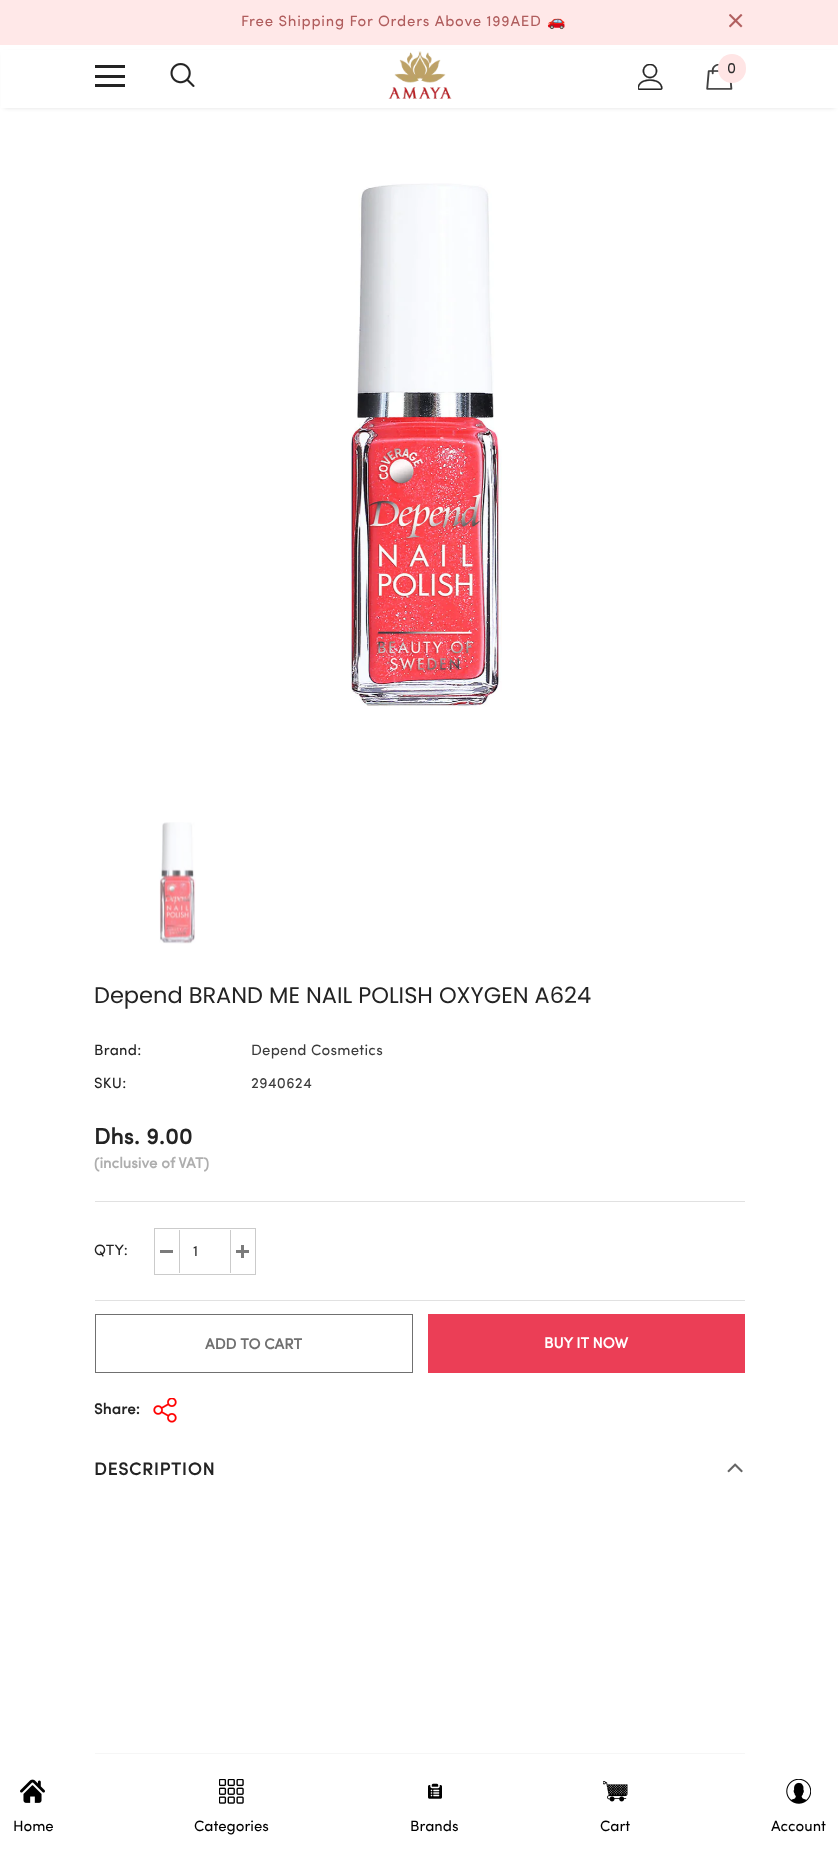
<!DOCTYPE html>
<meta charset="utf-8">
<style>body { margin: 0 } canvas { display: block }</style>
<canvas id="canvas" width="838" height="1852"></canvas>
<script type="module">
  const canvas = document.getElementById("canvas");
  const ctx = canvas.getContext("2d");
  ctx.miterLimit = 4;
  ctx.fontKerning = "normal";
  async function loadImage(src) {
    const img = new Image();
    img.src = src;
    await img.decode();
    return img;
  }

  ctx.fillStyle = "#ffffff";
  ctx.fillRect(0, 0, 838, 1852);
  ctx.fillStyle = "#ffe8e8";
  ctx.fillRect(0, 0, 838, 45);
  ctx.letterSpacing = "0.75px";
  ctx.font = "15px Sofia";
  ctx.fillStyle = "#b05d5d";
  ctx.fillText("Free Shipping For Orders Above 199AED", 241, 26);
  ctx.font = "15px Noto Color Emoji";
  ctx.fillText("🚗", 547, 26);
  ctx.drawImage(await loadImage("img1.png"), 729, 14, 14, 14);
  ctx.fillStyle = "rgba(0, 0, 0, 0.12)";
  ctx.filter = "blur(2px)";
  ctx.beginPath();
  ctx.rect(4, 53, 831, 55);
  ctx.fill();
  ctx.filter = "none";
  ctx.fillStyle = "#ffffff";
  ctx.fillRect(1, 50, 837, 58);
  ctx.fillStyle = "#232323";
  ctx.fillRect(95, 65, 30, 3);
  ctx.fillRect(95, 75, 30, 3);
  ctx.fillRect(95, 84, 30, 3);
  ctx.drawImage(await loadImage("img2.png"), 170, 63, 25, 24);
  ctx.drawImage(await loadImage("img3.png"), 388, 51, 64, 48);
  ctx.drawImage(await loadImage("img4.png"), 638, 64, 25, 26);
  ctx.drawImage(await loadImage("img5.png"), 706, 64, 27, 26);
  ctx.fillStyle = "#ffe5e5";
  ctx.beginPath();
  ctx.roundRect(718, 54, 28, 29, 14);
  ctx.fill();
  ctx.letterSpacing = "0px";
  ctx.font = "15px Sofia";
  ctx.fillStyle = "#2d2d2d";
  ctx.fillText("0", 727, 73);
  ctx.drawImage(await loadImage("img6.png"), 350, 183, 152, 524);
  ctx.drawImage(await loadImage("img7.png"), 159, 822, 37, 122);
  ctx.font = "22.5px Poppins";
  ctx.fillStyle = "#232323";
  ctx.fillText("Depend BRAND ME NAIL POLISH OXYGEN A624", 94, 1003);
  ctx.letterSpacing = "0.25px";
  ctx.font = "15px Sofia";
  ctx.fillText("Brand:", 94, 1055);
  ctx.fillStyle = "#3c3c3c";
  ctx.fillText("Depend Cosmetics", 251, 1055);
  ctx.fillStyle = "#232323";
  ctx.fillText("SKU:", 94, 1088);
  ctx.fillStyle = "#3c3c3c";
  ctx.fillText("2940624", 251, 1088);
  ctx.fillStyle = "#e1e1e1";
  ctx.fillRect(95, 1201, 650, 1);
  ctx.font = "bold 22.5px Sofia";
  ctx.fillStyle = "#232323";
  ctx.fillText("Dhs. 9.00", 94, 1144);
  ctx.letterSpacing = "0px";
  ctx.font = "bold 15px Sofia";
  ctx.fillStyle = "#aeaeae";
  ctx.fillText("(inclusive of VAT)", 94, 1168);
  ctx.letterSpacing = "0.25px";
  ctx.font = "15px Sofia";
  ctx.fillStyle = "#232323";
  ctx.fillText("QTY:", 94, 1255);
  ctx.strokeStyle = "#cbcbcb";
  ctx.strokeRect(154.5, 1228.5, 101, 46);
  ctx.fillStyle = "#cbcbcb";
  ctx.fillRect(179, 1230, 1, 43);
  ctx.fillStyle = "#7b7b7b";
  ctx.fillRect(160, 1250, 13, 3);
  ctx.letterSpacing = "0px";
  ctx.fillStyle = "#2d2d2d";
  ctx.fillText("1", 193, 1256);
  ctx.fillStyle = "#cbcbcb";
  ctx.fillRect(230, 1230, 1, 43);
  ctx.fillStyle = "#7b7b7b";
  ctx.fillRect(236, 1250, 13, 3);
  ctx.fillRect(241, 1245, 3, 13);
  ctx.fillStyle = "#e1e1e1";
  ctx.fillRect(95, 1300, 650, 1);
  ctx.strokeStyle = "#707070";
  ctx.strokeRect(95.5, 1314.5, 317, 58);
  ctx.font = "bold 15px Sofia";
  ctx.fillStyle = "#707070";
  ctx.fillText("ADD TO CART", 205, 1349);
  ctx.fillStyle = "#eb3e56";
  ctx.fillRect(428, 1314, 317, 59);
  ctx.fillStyle = "#ffffff";
  ctx.fillText("BUY IT NOW", 544, 1348);
  ctx.letterSpacing = "0.25px";
  ctx.fillStyle = "#232323";
  ctx.fillText("Share:", 94, 1414);
  ctx.drawImage(await loadImage("img8.png"), 153, 1398, 24, 25);
  ctx.letterSpacing = "0.9px";
  ctx.font = "bold 17.5px Sofia";
  ctx.fillText("DESCRIPTION", 94, 1475);
  ctx.drawImage(await loadImage("img9.png"), 727, 1463, 16, 10);
  ctx.fillStyle = "#f6f6f6";
  ctx.fillRect(95, 1753, 650, 1);
  ctx.drawImage(await loadImage("img10.png"), 20, 1779, 25, 24);
  ctx.letterSpacing = "0px";
  ctx.font = "15px Sofia";
  ctx.fillStyle = "#000000";
  ctx.fillText("Home", 13, 1831);
  ctx.drawImage(await loadImage("img11.png"), 219, 1779, 25, 25);
  ctx.fillText("Categories", 194, 1831);
  ctx.drawImage(await loadImage("img12.png"), 428, 1783, 14, 16);
  ctx.fillText("Brands", 410, 1831);
  ctx.drawImage(await loadImage("img13.png"), 603, 1781, 25, 21);
  ctx.fillText("Cart", 600, 1831);
  ctx.drawImage(await loadImage("img14.png"), 786, 1779, 25, 25);
  ctx.fillText("Account", 771, 1831);
</script>
